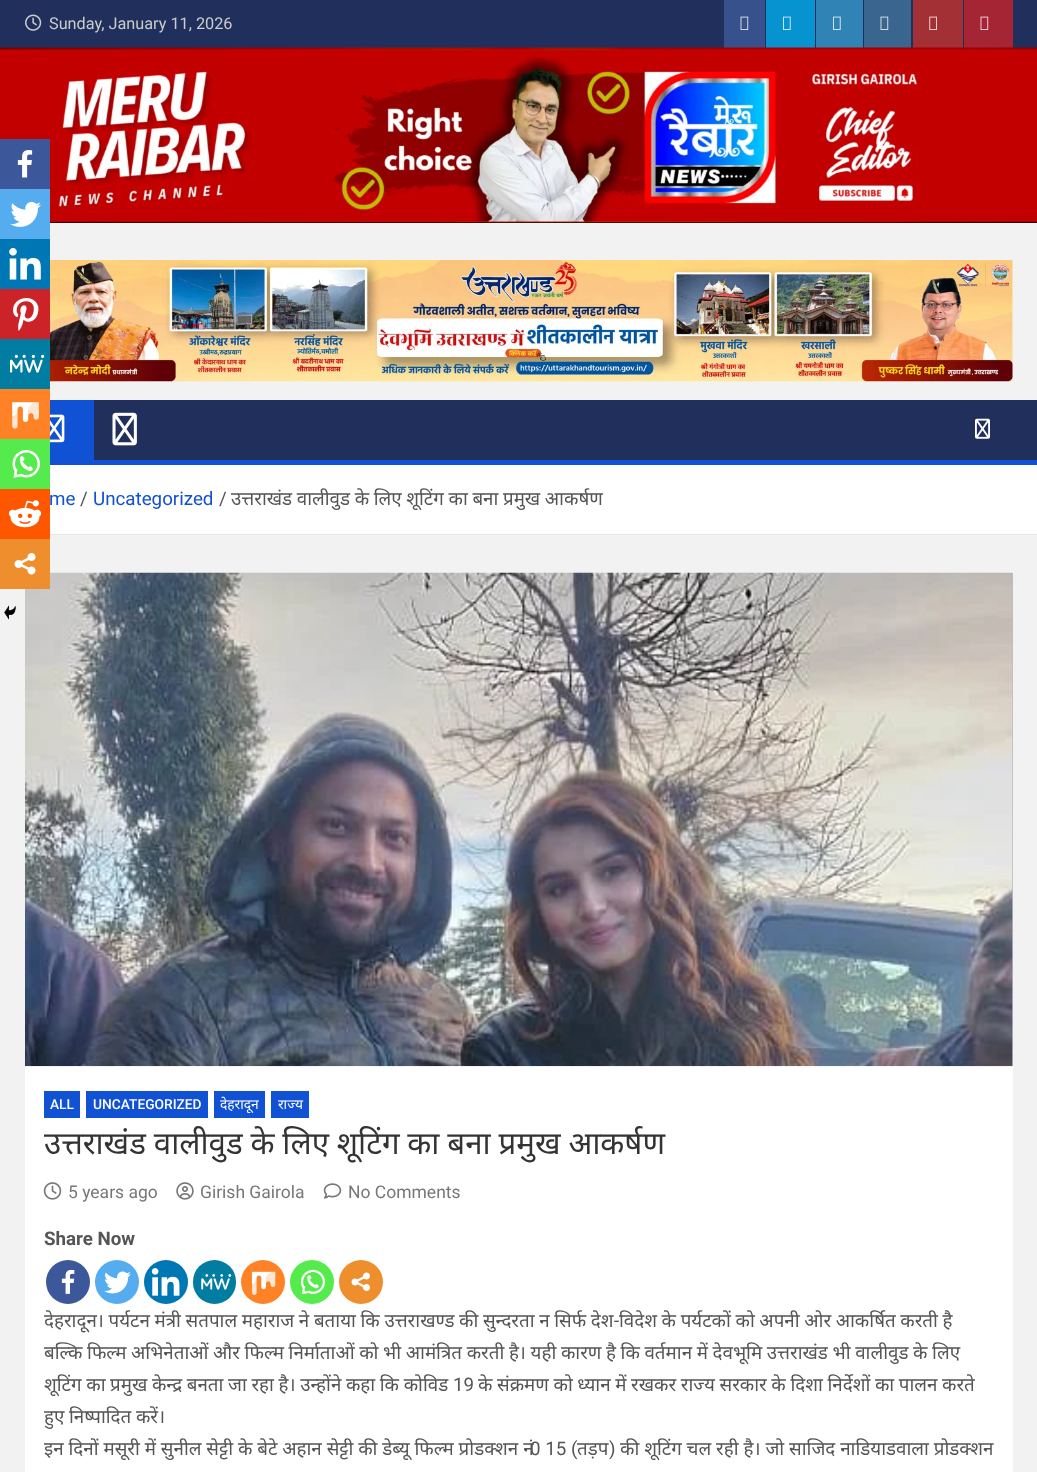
<!DOCTYPE html>
<meta charset="utf-8">
<style>body { margin: 0 } canvas { display: block }</style>
<canvas id="canvas" width="1037" height="1472"></canvas>
<script type="module">
  const canvas = document.getElementById("canvas");
  const ctx = canvas.getContext("2d");
  ctx.miterLimit = 4;
  ctx.fontKerning = "normal";
  async function loadImage(src) {
    const img = new Image();
    img.src = src;
    await img.decode();
    return img;
  }

  ctx.fillStyle = "#f2f2f2";
  ctx.fillRect(0, 0, 1037, 1472);
  ctx.fillStyle = "#202f5b";
  ctx.fillRect(0, 0, 1037, 48);
  ctx.drawImage(await loadImage("img1.png"), 25, 14, 17, 17);
  ctx.font = "16.25px Roboto";
  ctx.fillStyle = "#cccccc";
  ctx.fillText("Sunday, January 11, 2026", 49, 29);
  ctx.fillStyle = "#36518c";
  ctx.fillRect(724, 0, 41, 48);
  ctx.drawImage(await loadImage("img2.png"), 740, 16, 9, 14);
  ctx.fillStyle = "#0693d0";
  ctx.fillRect(766, 0, 49, 48);
  ctx.drawImage(await loadImage("img3.png"), 783, 16, 8, 14);
  ctx.fillStyle = "#2f84b5";
  ctx.fillRect(816, 0, 47, 48);
  ctx.drawImage(await loadImage("img4.png"), 833, 16, 8, 14);
  ctx.fillStyle = "#39658e";
  ctx.fillRect(864, 0, 47, 48);
  ctx.drawImage(await loadImage("img5.png"), 880, 16, 9, 14);
  ctx.fillStyle = "#a33035";
  ctx.fillRect(913, 0, 50, 48);
  ctx.drawImage(await loadImage("img6.png"), 929, 16, 8, 14);
  ctx.fillStyle = "#a62535";
  ctx.fillRect(964, 0, 49, 48);
  ctx.drawImage(await loadImage("img7.png"), 980, 16, 9, 14);
  ctx.fillStyle = "#000000";
  ctx.fillRect(50, 222, 987, 1);
  ctx.drawImage(await loadImage("img8.png"), 0, 47, 1037, 176);
  ctx.drawImage(await loadImage("img9.png"), 50, 260, 963, 122);
  ctx.fillStyle = "#202f5b";
  ctx.fillRect(94, 400, 943, 60);
  ctx.fillStyle = "#1151d3";
  ctx.fillRect(50, 400, 44, 60);
  ctx.drawImage(await loadImage("img10.png"), 50, 414, 15, 29);
  ctx.drawImage(await loadImage("img11.png"), 112, 412, 25, 34);
  ctx.drawImage(await loadImage("img12.png"), 975, 418, 15, 21);
  ctx.fillRect(50, 460, 987, 5);
  ctx.fillStyle = "#ffffff";
  ctx.fillRect(50, 465, 987, 69);
  ctx.fillStyle = "#e6e6e6";
  ctx.fillRect(50, 534, 987, 1);
  ctx.font = "18.75px Roboto";
  ctx.fillStyle = "#1151d3";
  ctx.fillText("me", 49, 505);
  ctx.fillStyle = "#555555";
  ctx.fillText("/", 80, 505);
  ctx.fillStyle = "#1151d3";
  ctx.fillText("Uncategorized", 93, 505);
  ctx.fillStyle = "#555555";
  ctx.fillText("/", 219, 505);
  ctx.wordSpacing = "-0.25px";
  ctx.font = "18.75px Noto Sans";
  ctx.fillText("उत्तराखंड वालीवुड के लिए शूटिंग का बना प्रमुख आकर्षण", 231, 505);
  ctx.fillStyle = "#ffffff";
  ctx.fillRect(25, 1066, 988, 406);
  ctx.fillStyle = "#bcbcbc";
  ctx.fillRect(1012, 573, 1, 493);
  ctx.drawImage(await loadImage("img13.png"), 25, 572, 988, 495);
  ctx.fillStyle = "#1151d3";
  ctx.fillRect(44, 1091, 36, 27);
  ctx.wordSpacing = "0px";
  ctx.font = "500 13.75px Roboto";
  ctx.fillStyle = "#ffffff";
  ctx.fillText("ALL", 50, 1109);
  ctx.fillStyle = "#1151d3";
  ctx.fillRect(86, 1091, 122, 27);
  ctx.fillStyle = "#ffffff";
  ctx.fillText("UNCATEGORIZED", 93, 1109);
  ctx.fillStyle = "#1151d3";
  ctx.fillRect(214, 1091, 51, 27);
  ctx.font = "13.75px Noto Sans";
  ctx.fillStyle = "#ffffff";
  ctx.fillText("देहरादून", 220, 1109);
  ctx.fillStyle = "#1151d3";
  ctx.fillRect(271, 1091, 38, 27);
  ctx.fillStyle = "#ffffff";
  ctx.fillText("राज्य", 278, 1109);
  ctx.wordSpacing = "-0.25px";
  ctx.font = "31.25px Noto Sans";
  ctx.fillStyle = "#333333";
  ctx.fillText("उत्तराखंड वालीवुड के लिए शूटिंग का बना प्रमुख आकर्षण", 44, 1154);
  ctx.drawImage(await loadImage("img14.png"), 43, 1182, 19, 18);
  ctx.wordSpacing = "0px";
  ctx.font = "17.5px Roboto";
  ctx.fillStyle = "#777777";
  ctx.fillText("5 years ago", 68, 1198);
  ctx.drawImage(await loadImage("img15.png"), 176, 1182, 18, 18);
  ctx.fillText("Girish Gairola", 200, 1198);
  ctx.drawImage(await loadImage("img16.png"), 323, 1183, 19, 16);
  ctx.fillText("No Comments", 348, 1198);
  ctx.fillStyle = "#3c589a";
  ctx.fillRect(0, 139, 50, 50);
  ctx.drawImage(await loadImage("img17.png"), 17, 150, 16, 28);
  ctx.fillStyle = "#55acee";
  ctx.fillRect(0, 189, 50, 50);
  ctx.drawImage(await loadImage("img18.png"), 10, 201, 31, 26);
  ctx.fillStyle = "#0077b5";
  ctx.fillRect(0, 239, 50, 50);
  ctx.drawImage(await loadImage("img19.png"), 9, 248, 32, 32);
  ctx.fillStyle = "#cc2329";
  ctx.fillRect(0, 289, 50, 50);
  ctx.drawImage(await loadImage("img20.png"), 13, 298, 26, 33);
  ctx.fillStyle = "#007da1";
  ctx.fillRect(0, 339, 50, 50);
  ctx.drawImage(await loadImage("img21.png"), 10, 354, 35, 19);
  ctx.fillStyle = "#ff8226";
  ctx.fillRect(0, 389, 50, 50);
  ctx.drawImage(await loadImage("img22.png"), 12, 402, 27, 27);
  ctx.fillStyle = "#55eb4c";
  ctx.fillRect(0, 439, 50, 50);
  ctx.drawImage(await loadImage("img23.png"), 12, 450, 28, 28);
  ctx.fillStyle = "#ff5700";
  ctx.fillRect(0, 489, 50, 50);
  ctx.drawImage(await loadImage("img24.png"), 8, 500, 34, 28);
  ctx.fillStyle = "#ee8e2d";
  ctx.fillRect(0, 539, 50, 50);
  ctx.drawImage(await loadImage("img25.png"), 14, 553, 22, 22);
  ctx.drawImage(await loadImage("img26.png"), 4, 605, 12, 15);
  ctx.font = "bold 18.75px Roboto";
  ctx.fillStyle = "#555555";
  ctx.fillText("Share Now", 44, 1245);
  ctx.fillStyle = "#3c589a";
  ctx.beginPath();
  ctx.arc(68, 1282, 22, 0, Math.PI * 2);
  ctx.fill();
  ctx.drawImage(await loadImage("img27.png"), 61, 1269, 14, 25);
  ctx.fillStyle = "#55acee";
  ctx.beginPath();
  ctx.arc(117, 1282, 22, 0, Math.PI * 2);
  ctx.fill();
  ctx.drawImage(await loadImage("img28.png"), 104, 1271, 27, 23);
  ctx.fillStyle = "#0077b5";
  ctx.beginPath();
  ctx.arc(166, 1282, 22, 0, Math.PI * 2);
  ctx.fill();
  ctx.drawImage(await loadImage("img29.png"), 151, 1268, 29, 28);
  ctx.fillStyle = "#007da1";
  ctx.beginPath();
  ctx.roundRect(193, 1260, 43, 44, 21.5);
  ctx.fill();
  ctx.drawImage(await loadImage("img30.png"), 201, 1274, 31, 16);
  ctx.fillStyle = "#ff8226";
  ctx.beginPath();
  ctx.arc(263, 1282, 22, 0, Math.PI * 2);
  ctx.fill();
  ctx.drawImage(await loadImage("img31.png"), 251, 1271, 25, 24);
  ctx.fillStyle = "#55eb4c";
  ctx.beginPath();
  ctx.arc(312, 1282, 22, 0, Math.PI * 2);
  ctx.fill();
  ctx.drawImage(await loadImage("img32.png"), 300, 1269, 25, 26);
  ctx.fillStyle = "#ee8e2d";
  ctx.beginPath();
  ctx.arc(361, 1282, 22, 0, Math.PI * 2);
  ctx.fill();
  ctx.drawImage(await loadImage("img33.png"), 351, 1272, 19, 19);
  ctx.save();
  ctx.beginPath();
  ctx.rect(44, 1224, 950, 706);
  ctx.clip();
  ctx.wordSpacing = "-0.25px";
  ctx.font = "18.75px Noto Sans";
  ctx.fillStyle = "#555555";
  ctx.fillText("देहरादून। पर्यटन मंत्री सतपाल महाराज ने बताया कि उत्तराखण्ड की सुन्दरता न सिर्फ देश", 44, 1327);
  ctx.restore();
  ctx.font = "18.75px Roboto";
  ctx.fillStyle = "#555555";
  ctx.fillText("-", 614, 1327);
  ctx.wordSpacing = "-0.25px";
  ctx.font = "18.75px Noto Sans";
  ctx.fillText("विदेश के पर्यटकों को अपनी ओर आकर्षित करती है", 619, 1327);
  ctx.fillText("बल्कि फिल्म अभिनेताओं और फिल्म निर्माताओं को भी आमंत्रित करती है। यही कारण है कि वर्तमान में देवभूमि उत्तराखंड भी वालीवुड के लिए", 44, 1359);
  ctx.save();
  ctx.beginPath();
  ctx.rect(44, 1224, 950, 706);
  ctx.clip();
  ctx.fillText("शूटिंग का प्रमुख केन्द्र बनता जा रहा है। उन्होंने कहा कि कोविड", 44, 1391);
  ctx.restore();
  ctx.wordSpacing = "0px";
  ctx.font = "18.75px Roboto";
  ctx.fillText("19", 453, 1391);
  ctx.wordSpacing = "-0.25px";
  ctx.font = "18.75px Noto Sans";
  ctx.fillText("के संक्रमण को ध्यान में रखकर राज्य सरकार के दिशा निर्देशों का पालन करते", 478, 1391);
  ctx.fillText("हुए निष्पादित करें।", 44, 1423);
  ctx.wordSpacing = "0px";
  ctx.fillText("इन दिनों मसूरी में सुनील सेट्टी के बेटे अहान सेट्टी की डेब्यू फिल्म प्रोडक्शन नं", 44, 1455);
  ctx.font = "18.75px Roboto";
  ctx.fillText("0 15 (", 530, 1455);
  ctx.font = "18.75px Noto Sans";
  ctx.fillText("तड़प", 577, 1455);
  ctx.font = "18.75px Roboto";
  ctx.fillText(")", 609, 1455);
  ctx.font = "18.75px Noto Sans";
  ctx.fillText("की शूटिंग चल रही है। जो साजिद नाडियाडवाला प्रोडक्शन", 620, 1455);
</script>
